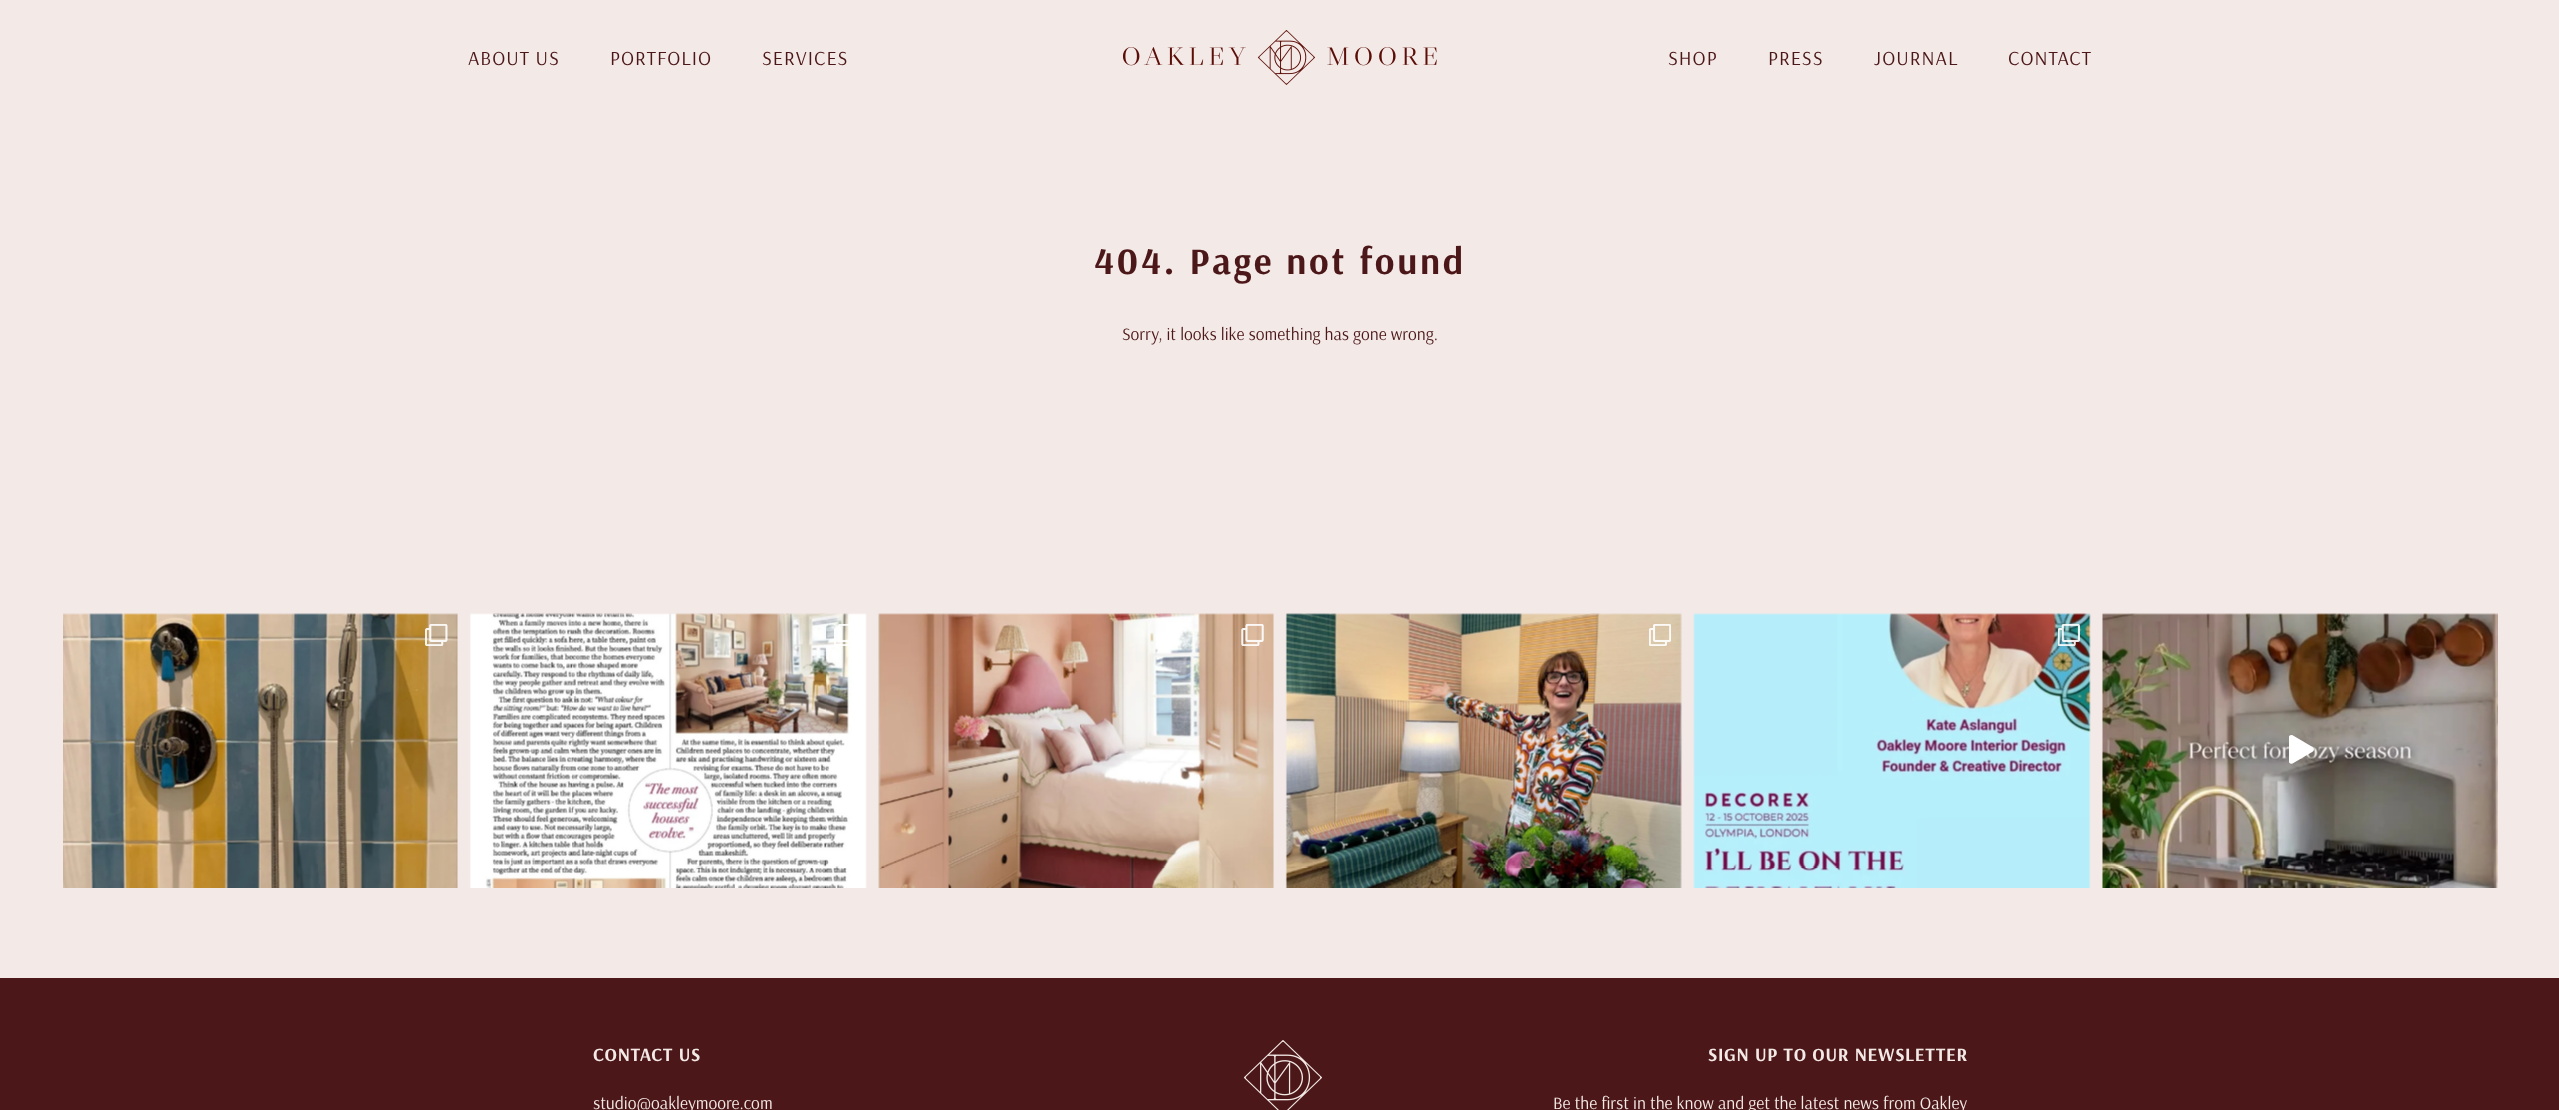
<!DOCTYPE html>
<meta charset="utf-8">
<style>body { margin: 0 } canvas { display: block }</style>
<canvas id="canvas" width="2559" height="1110"></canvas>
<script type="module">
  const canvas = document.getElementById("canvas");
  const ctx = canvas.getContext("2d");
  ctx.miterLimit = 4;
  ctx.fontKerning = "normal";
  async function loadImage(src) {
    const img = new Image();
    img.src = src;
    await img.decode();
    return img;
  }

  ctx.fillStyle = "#f3e9e6";
  ctx.fillRect(0, 0, 2559, 1110);
  ctx.letterSpacing = "1px";
  ctx.font = "20px Arsenal";
  ctx.fillStyle = "#4c1718";
  ctx.fillText("ABOUT US", 468, 65);
  ctx.fillText("PORTFOLIO", 610, 65);
  ctx.fillText("SERVICES", 762, 65);
  ctx.drawImage(await loadImage("img1.png"), 1123, 30, 314, 55);
  ctx.fillText("SHOP", 1668, 65);
  ctx.fillText("PRESS", 1768, 65);
  ctx.fillText("JOURNAL", 1874, 65);
  ctx.fillText("CONTACT", 2008, 65);
  ctx.letterSpacing = "2.6px";
  ctx.font = "bold 37.5px Arsenal";
  ctx.fillText("404. Page not found", 1094, 274);
  ctx.letterSpacing = "0px";
  ctx.font = "17.5px Arsenal";
  ctx.fillText("Sorry, it looks like something has gone wrong.", 1122, 340);
  ctx.drawImage(await loadImage("img2.png"), 63, 613, 395, 275);
  ctx.drawImage(await loadImage("img3.png"), 425, 624, 23, 22);
  ctx.drawImage(await loadImage("img4.png"), 470, 613, 397, 275);
  ctx.drawImage(await loadImage("img5.png"), 834, 624, 15, 22);
  ctx.drawImage(await loadImage("img6.png"), 878, 613, 396, 275);
  ctx.drawImage(await loadImage("img7.png"), 1241, 624, 23, 22);
  ctx.drawImage(await loadImage("img8.png"), 1285, 613, 397, 275);
  ctx.drawImage(await loadImage("img9.png"), 1649, 624, 22, 22);
  ctx.drawImage(await loadImage("img10.png"), 1693, 613, 398, 275);
  ctx.drawImage(await loadImage("img11.png"), 2058, 624, 22, 22);
  ctx.drawImage(await loadImage("img12.png"), 2102, 613, 396, 275);
  ctx.drawImage(await loadImage("img13.png"), 2289, 735, 25, 29);
  ctx.fillRect(0, 978, 2559, 132);
  ctx.letterSpacing = "0.7px";
  ctx.font = "bold 18.75px Arsenal";
  ctx.fillStyle = "#f3e9e6";
  ctx.fillText("CONTACT US", 593, 1061);
  ctx.letterSpacing = "0px";
  ctx.font = "17.5px Arsenal";
  ctx.fillText("studio@oakleymoore.com", 593, 1109);
  ctx.drawImage(await loadImage("img14.png"), 1243, 1040, 79, 70);
  ctx.letterSpacing = "0.7px";
  ctx.font = "bold 18.75px Arsenal";
  ctx.fillText("SIGN UP TO OUR NEWSLETTER", 1708, 1061);
  ctx.letterSpacing = "0px";
  ctx.font = "17.5px Arsenal";
  ctx.fillText("Be the first in the know and get the latest news from Oakley", 1553, 1109);
</script>
